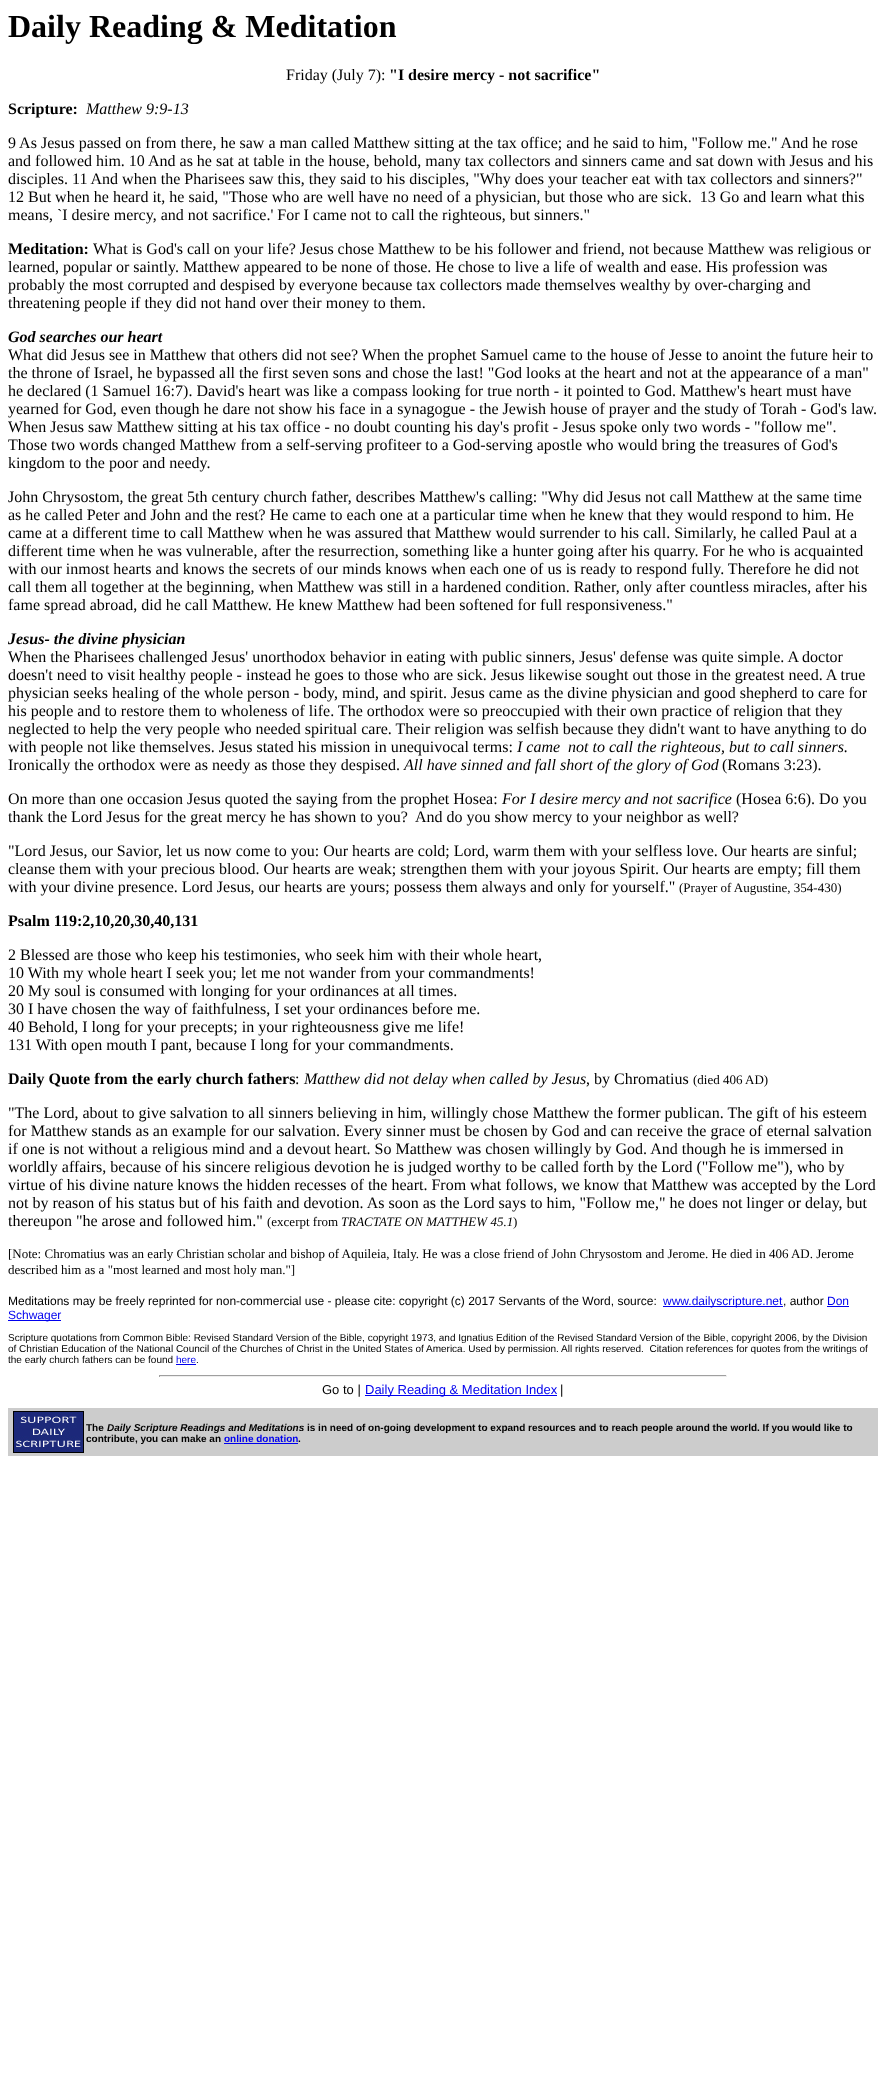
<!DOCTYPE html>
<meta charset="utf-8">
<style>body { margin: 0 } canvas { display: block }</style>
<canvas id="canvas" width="886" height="2086"></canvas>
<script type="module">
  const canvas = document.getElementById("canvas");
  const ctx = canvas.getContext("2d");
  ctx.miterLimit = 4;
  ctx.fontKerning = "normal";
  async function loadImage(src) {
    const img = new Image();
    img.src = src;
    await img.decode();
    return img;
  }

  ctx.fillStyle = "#ffffff";
  ctx.fillRect(0, 0, 886, 2086);
  ctx.font = "bold 32px Liberation Serif";
  ctx.fillStyle = "#000000";
  ctx.fillText("Daily Reading & Meditation", 8, 37);
  ctx.font = "16px Liberation Serif";
  ctx.fillText("Friday (July 7):", 286, 80);
  ctx.font = "bold 16px Liberation Serif";
  ctx.fillText("\"I desire mercy - not sacrifice\"", 389, 80);
  ctx.fillText("Scripture:", 8, 114);
  ctx.font = "italic 16px Liberation Serif";
  ctx.fillText("Matthew 9:9-13", 86, 114);
  ctx.font = "16px Liberation Serif";
  ctx.fillText("9 As Jesus passed on from there, he saw a man called Matthew sitting at the tax office; and he said to him, \"Follow me.\" And he rose", 8, 148);
  ctx.fillText("and followed him. 10 And as he sat at table in the house, behold, many tax collectors and sinners came and sat down with Jesus and his", 8, 166);
  ctx.fillText("disciples. 11 And when the Pharisees saw this, they said to his disciples, \"Why does your teacher eat with tax collectors and sinners?\"", 8, 184);
  ctx.fillText("12 But when he heard it, he said, \"Those who are well have no need of a physician, but those who are sick.  13 Go and learn what this", 8, 202);
  ctx.fillText("means, `I desire mercy, and not sacrifice.' For I came not to call the righteous, but sinners.\"", 8, 220);
  ctx.font = "bold 16px Liberation Serif";
  ctx.fillText("Meditation:", 8, 254);
  ctx.font = "16px Liberation Serif";
  ctx.fillText("What is God's call on your life? Jesus chose Matthew to be his follower and friend, not because Matthew was religious or", 93, 254);
  ctx.fillText("learned, popular or saintly. Matthew appeared to be none of those. He chose to live a life of wealth and ease. His profession was", 8, 272);
  ctx.fillText("probably the most corrupted and despised by everyone because tax collectors made themselves wealthy by over-charging and", 8, 290);
  ctx.fillText("threatening people if they did not hand over their money to them.", 8, 308);
  ctx.font = "italic bold 16px Liberation Serif";
  ctx.fillText("God searches our heart", 8, 342);
  ctx.font = "16px Liberation Serif";
  ctx.fillText("What did Jesus see in Matthew that others did not see? When the prophet Samuel came to the house of Jesse to anoint the future heir to", 8, 360);
  ctx.fillText("the throne of Israel, he bypassed all the first seven sons and chose the last! \"God looks at the heart and not at the appearance of a man\"", 8, 378);
  ctx.fillText("he declared (1 Samuel 16:7). David's heart was like a compass looking for true north - it pointed to God. Matthew's heart must have", 8, 396);
  ctx.fillText("yearned for God, even though he dare not show his face in a synagogue - the Jewish house of prayer and the study of Torah - God's law.", 8, 414);
  ctx.fillText("When Jesus saw Matthew sitting at his tax office - no doubt counting his day's profit - Jesus spoke only two words - \"follow me\".", 8, 432);
  ctx.fillText("Those two words changed Matthew from a self-serving profiteer to a God-serving apostle who would bring the treasures of God's", 8, 450);
  ctx.fillText("kingdom to the poor and needy.", 8, 468);
  ctx.fillText("John Chrysostom, the great 5th century church father, describes Matthew's calling: \"Why did Jesus not call Matthew at the same time", 8, 502);
  ctx.fillText("as he called Peter and John and the rest? He came to each one at a particular time when he knew that they would respond to him. He", 8, 520);
  ctx.fillText("came at a different time to call Matthew when he was assured that Matthew would surrender to his call. Similarly, he called Paul at a", 8, 538);
  ctx.fillText("different time when he was vulnerable, after the resurrection, something like a hunter going after his quarry. For he who is acquainted", 8, 556);
  ctx.fillText("with our inmost hearts and knows the secrets of our minds knows when each one of us is ready to respond fully. Therefore he did not", 8, 574);
  ctx.fillText("call them all together at the beginning, when Matthew was still in a hardened condition. Rather, only after countless miracles, after his", 8, 592);
  ctx.fillText("fame spread abroad, did he call Matthew. He knew Matthew had been softened for full responsiveness.\"", 8, 610);
  ctx.font = "italic bold 16px Liberation Serif";
  ctx.fillText("Jesus- the divine physician", 8, 644);
  ctx.font = "16px Liberation Serif";
  ctx.fillText("When the Pharisees challenged Jesus' unorthodox behavior in eating with public sinners, Jesus' defense was quite simple. A doctor", 8, 662);
  ctx.fillText("doesn't need to visit healthy people - instead he goes to those who are sick. Jesus likewise sought out those in the greatest need. A true", 8, 680);
  ctx.fillText("physician seeks healing of the whole person - body, mind, and spirit. Jesus came as the divine physician and good shepherd to care for", 8, 698);
  ctx.fillText("his people and to restore them to wholeness of life. The orthodox were so preoccupied with their own practice of religion that they", 8, 716);
  ctx.fillText("neglected to help the very people who needed spiritual care. Their religion was selfish because they didn't want to have anything to do", 8, 734);
  ctx.fillText("with people not like themselves. Jesus stated his mission in unequivocal terms:", 8, 752);
  ctx.font = "italic 16px Liberation Serif";
  ctx.fillText("I came  not to call the righteous, but to call sinners.", 517, 752);
  ctx.font = "16px Liberation Serif";
  ctx.fillText("Ironically the orthodox were as needy as those they despised.", 8, 770);
  ctx.font = "italic 16px Liberation Serif";
  ctx.fillText("All have sinned and fall short of the glory of God", 404, 770);
  ctx.font = "16px Liberation Serif";
  ctx.fillText("(Romans 3:23).", 722, 770);
  ctx.fillText("On more than one occasion Jesus quoted the saying from the prophet Hosea:", 8, 804);
  ctx.font = "italic 16px Liberation Serif";
  ctx.fillText("For I desire mercy and not sacrifice", 502, 804);
  ctx.font = "16px Liberation Serif";
  ctx.fillText("(Hosea 6:6). Do you", 736, 804);
  ctx.fillText("thank the Lord Jesus for the great mercy he has shown to you?  And do you show mercy to your neighbor as well?", 8, 822);
  ctx.fillText("\"Lord Jesus, our Savior, let us now come to you: Our hearts are cold; Lord, warm them with your selfless love. Our hearts are sinful;", 8, 856);
  ctx.fillText("cleanse them with your precious blood. Our hearts are weak; strengthen them with your joyous Spirit. Our hearts are empty; fill them", 8, 874);
  ctx.fillText("with your divine presence. Lord Jesus, our hearts are yours; possess them always and only for yourself.\"", 8, 892);
  ctx.font = "13px Liberation Serif";
  ctx.fillText("(Prayer of Augustine, 354-430)", 679, 892);
  ctx.font = "bold 16px Liberation Serif";
  ctx.fillText("Psalm 119:2,10,20,30,40,131", 8, 926);
  ctx.font = "16px Liberation Serif";
  ctx.fillText("2 Blessed are those who keep his testimonies, who seek him with their whole heart,", 8, 960);
  ctx.fillText("10 With my whole heart I seek you; let me not wander from your commandments!", 8, 978);
  ctx.fillText("20 My soul is consumed with longing for your ordinances at all times.", 8, 996);
  ctx.fillText("30 I have chosen the way of faithfulness, I set your ordinances before me.", 8, 1014);
  ctx.fillText("40 Behold, I long for your precepts; in your righteousness give me life!", 8, 1032);
  ctx.fillText("131 With open mouth I pant, because I long for your commandments.", 8, 1050);
  ctx.font = "bold 16px Liberation Serif";
  ctx.fillText("Daily Quote from the early church fathers", 8, 1084);
  ctx.font = "16px Liberation Serif";
  ctx.fillText(":", 295, 1084);
  ctx.font = "italic 16px Liberation Serif";
  ctx.fillText("Matthew did not delay when called by Jesus", 304, 1084);
  ctx.font = "16px Liberation Serif";
  ctx.fillText(", by Chromatius", 586, 1084);
  ctx.font = "13px Liberation Serif";
  ctx.fillText("(died 406 AD)", 693, 1084);
  ctx.font = "16px Liberation Serif";
  ctx.fillText("\"The Lord, about to give salvation to all sinners believing in him, willingly chose Matthew the former publican. The gift of his esteem", 8, 1118);
  ctx.fillText("for Matthew stands as an example for our salvation. Every sinner must be chosen by God and can receive the grace of eternal salvation", 8, 1136);
  ctx.fillText("if one is not without a religious mind and a devout heart. So Matthew was chosen willingly by God. And though he is immersed in", 8, 1154);
  ctx.fillText("worldly affairs, because of his sincere religious devotion he is judged worthy to be called forth by the Lord (\"Follow me\"), who by", 8, 1172);
  ctx.fillText("virtue of his divine nature knows the hidden recesses of the heart. From what follows, we know that Matthew was accepted by the Lord", 8, 1190);
  ctx.fillText("not by reason of his status but of his faith and devotion. As soon as the Lord says to him, \"Follow me,\" he does not linger or delay, but", 8, 1208);
  ctx.fillText("thereupon \"he arose and followed him.\"", 8, 1226);
  ctx.font = "13px Liberation Serif";
  ctx.fillText("(excerpt from", 267, 1226);
  ctx.font = "italic 13px Liberation Serif";
  ctx.fillText("TRACTATE ON MATTHEW 45.1", 341, 1226);
  ctx.font = "13px Liberation Serif";
  ctx.fillText(")", 513, 1226);
  ctx.fillText("[Note: Chromatius was an early Christian scholar and bishop of Aquileia, Italy. He was a close friend of John Chrysostom and Jerome. He died in 406 AD. Jerome", 8, 1258);
  ctx.fillText("described him as a \"most learned and most holy man.\"]", 8, 1274);
  ctx.font = "12px Liberation Sans";
  ctx.fillText("Meditations may be freely reprinted for non-commercial use - please cite: copyright (c) 2017 Servants of the Word, source:", 8, 1305);
  ctx.fillStyle = "#0000ee";
  ctx.fillRect(663, 1306, 120, 1);
  ctx.fillText("www.dailyscripture.net", 663, 1305);
  ctx.fillStyle = "#000000";
  ctx.fillText(", author", 783, 1305);
  ctx.fillStyle = "#0000ee";
  ctx.fillText("Don", 827, 1305);
  ctx.fillRect(827, 1306, 22, 1);
  ctx.fillRect(8, 1320, 53, 1);
  ctx.fillText("Schwager", 8, 1319);
  ctx.font = "10px Liberation Sans";
  ctx.fillStyle = "#000000";
  ctx.fillText("Scripture quotations from Common Bible: Revised Standard Version of the Bible, copyright 1973, and Ignatius Edition of the Revised Standard Version of the Bible, copyright 2006, by the Division", 8, 1341);
  ctx.fillText("of Christian Education of the National Council of the Churches of Christ in the United States of America. Used by permission. All rights reserved.  Citation references for quotes from the writings of", 8, 1352);
  ctx.fillText("the early church fathers can be found", 8, 1363);
  ctx.fillStyle = "#0000ee";
  ctx.fillText("here", 176, 1363);
  ctx.fillStyle = "#000000";
  ctx.fillText(".", 196, 1363);
  ctx.fillStyle = "#0000ee";
  ctx.fillRect(176, 1364, 20, 1);
  ctx.fillStyle = "#9f9f9f";
  ctx.fillRect(159, 1375, 568, 1);
  ctx.fillStyle = "#eeeeee";
  ctx.fillRect(726, 1375, 1, 2);
  ctx.fillRect(159, 1376, 568, 1);
  ctx.fillStyle = "#9f9f9f";
  ctx.fillRect(159, 1375, 1, 2);
  ctx.font = "13px Liberation Sans";
  ctx.fillStyle = "#000000";
  ctx.fillText("Go to |", 322, 1394);
  ctx.fillStyle = "#0000ee";
  ctx.fillRect(365, 1395, 192, 1);
  ctx.fillText("Daily Reading & Meditation Index", 365, 1394);
  ctx.fillStyle = "#000000";
  ctx.fillText("|", 560, 1394);
  ctx.fillStyle = "#cccccc";
  ctx.fillRect(8, 1408, 870, 48);
  ctx.strokeStyle = "#000000";
  ctx.strokeRect(13.5, 1411.5, 70, 41);
  ctx.drawImage(await loadImage("img1.png"), 14, 1412, 69, 40);
  ctx.font = "bold 10px Liberation Sans";
  ctx.fillStyle = "#000000";
  ctx.fillText("The", 86, 1431);
  ctx.font = "italic bold 10px Liberation Sans";
  ctx.fillText("Daily Scripture Readings and Meditations", 107, 1431);
  ctx.font = "bold 10px Liberation Sans";
  ctx.fillText("is in need of on-going development to expand resources and to reach people around the world. If you would like to", 307, 1431);
  ctx.fillText("contribute, you can make an", 86, 1442);
  ctx.fillStyle = "#0000ee";
  ctx.fillText("online donation", 224, 1442);
  ctx.fillStyle = "#000000";
  ctx.fillText(".", 298, 1442);
  ctx.fillStyle = "#0000ee";
  ctx.fillRect(224, 1443, 74, 1);
</script>
